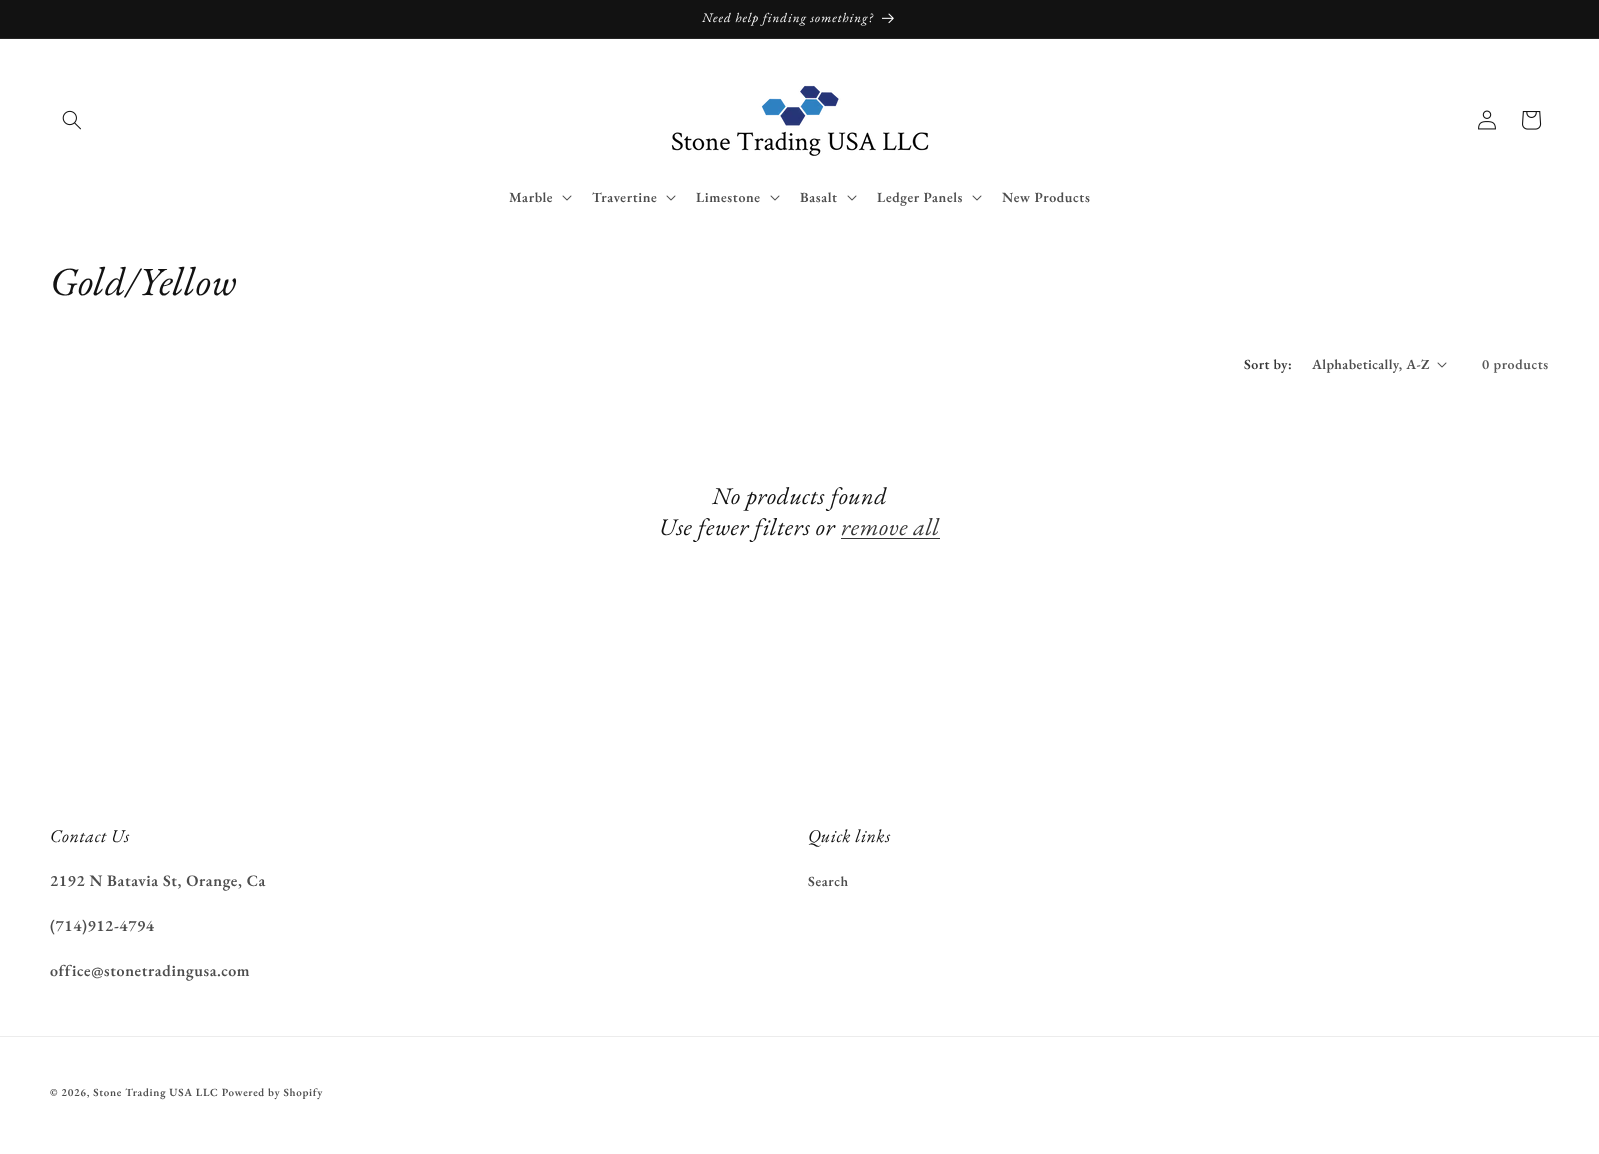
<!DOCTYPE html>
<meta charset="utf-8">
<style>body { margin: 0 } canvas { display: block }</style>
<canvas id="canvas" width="1599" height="1154"></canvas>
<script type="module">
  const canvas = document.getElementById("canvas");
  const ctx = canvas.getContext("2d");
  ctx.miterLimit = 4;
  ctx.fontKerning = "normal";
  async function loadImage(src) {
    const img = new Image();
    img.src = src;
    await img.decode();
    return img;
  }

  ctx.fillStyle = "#ffffff";
  ctx.fillRect(0, 0, 1599, 1154);
  ctx.fillStyle = "#121212";
  ctx.fillRect(0, 0, 1599, 38);
  ctx.fillStyle = "#252525";
  ctx.fillRect(0, 38, 1599, 1);
  ctx.letterSpacing = "1px";
  ctx.font = "italic 13px EB Garamond";
  ctx.fillStyle = "#ffffff";
  ctx.fillText("Need help finding something?", 702, 22);
  ctx.drawImage(await loadImage("img1.png"), 882, 13, 12, 11);
  ctx.drawImage(await loadImage("img2.png"), 62, 110, 19, 20);
  ctx.drawImage(await loadImage("img3.png"), 671, 85, 258, 71);
  ctx.drawImage(await loadImage("img4.png"), 1478, 110, 18, 20);
  ctx.drawImage(await loadImage("img5.png"), 1522, 111, 20, 19);
  ctx.letterSpacing = "0.6px";
  ctx.font = "600 14px EB Garamond";
  ctx.fillStyle = "#4d4d4d";
  ctx.fillText("Marble", 509, 202);
  ctx.drawImage(await loadImage("img6.png"), 562, 195, 10, 6);
  ctx.fillText("Travertine", 592, 202);
  ctx.drawImage(await loadImage("img6.png"), 666, 195, 10, 6);
  ctx.fillText("Limestone", 696, 202);
  ctx.drawImage(await loadImage("img6.png"), 770, 195, 10, 6);
  ctx.fillText("Basalt", 800, 202);
  ctx.drawImage(await loadImage("img6.png"), 847, 195, 10, 6);
  ctx.fillText("Ledger Panels", 877, 202);
  ctx.drawImage(await loadImage("img6.png"), 972, 195, 10, 6);
  ctx.fillText("New Products", 1002, 202);
  ctx.font = "italic 40px EB Garamond";
  ctx.fillStyle = "#121212";
  ctx.fillText("Gold/Yellow", 50, 295);
  ctx.letterSpacing = "0.4px";
  ctx.font = "600 14px EB Garamond";
  ctx.fillStyle = "#363636";
  ctx.fillText("Sort by:", 1244, 369);
  ctx.fillStyle = "#4d4d4d";
  ctx.fillText("Alphabetically, A-Z", 1312, 369);
  ctx.drawImage(await loadImage("img6.png"), 1437, 362, 10, 6);
  ctx.letterSpacing = "0.6px";
  ctx.fillStyle = "#595959";
  ctx.fillText("0 products", 1482, 369);
  ctx.font = "italic 24px EB Garamond";
  ctx.fillStyle = "#121212";
  ctx.fillText("No products found", 712, 504);
  ctx.fillText("Use fewer filters or", 659, 535);
  ctx.fillStyle = "#363636";
  ctx.fillText("remove all", 841, 535);
  ctx.fillRect(841, 538, 99, 1);
  ctx.font = "italic 18px EB Garamond";
  ctx.fillStyle = "#121212";
  ctx.fillText("Contact Us", 50, 842);
  ctx.font = "600 16px EB Garamond";
  ctx.fillStyle = "#4d4d4d";
  ctx.fillText("2192 N Batavia St, Orange, Ca", 50, 886);
  ctx.fillText("(714)912-4794", 50, 931);
  ctx.fillText("office@stonetradingusa.com", 50, 976);
  ctx.font = "italic 18px EB Garamond";
  ctx.fillStyle = "#121212";
  ctx.fillText("Quick links", 808, 842);
  ctx.font = "600 14px EB Garamond";
  ctx.fillStyle = "#4d4d4d";
  ctx.fillText("Search", 808, 886);
  ctx.fillStyle = "#ececec";
  ctx.fillRect(0, 1036, 1599, 1);
  ctx.letterSpacing = "0.7px";
  ctx.font = "600 11px EB Garamond";
  ctx.fillStyle = "#4d4d4d";
  ctx.fillText("© 2026, Stone Trading USA LLC Powered by Shopify", 50, 1096);
</script>
